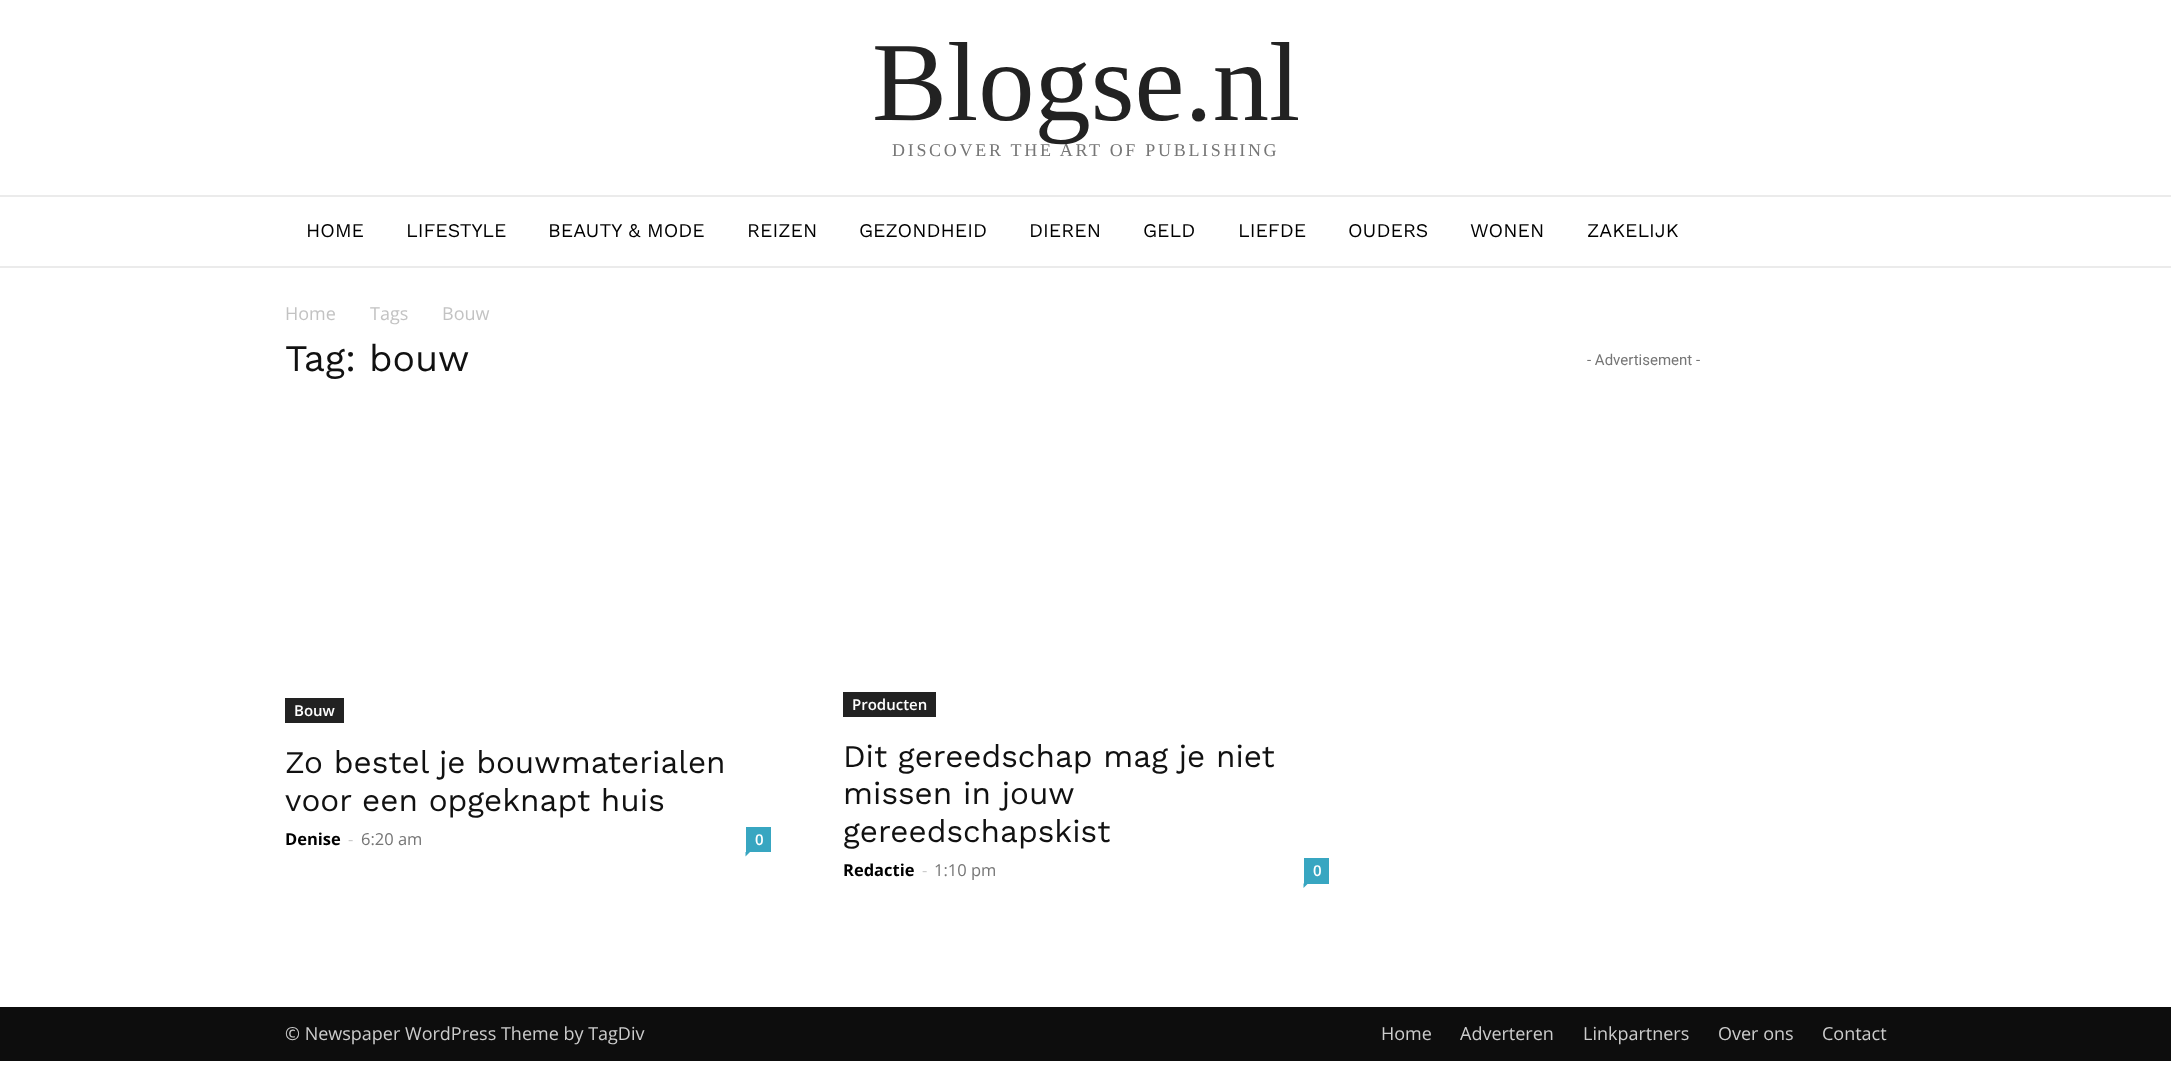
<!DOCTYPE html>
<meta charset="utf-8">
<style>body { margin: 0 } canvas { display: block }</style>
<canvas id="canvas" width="2171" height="1068"></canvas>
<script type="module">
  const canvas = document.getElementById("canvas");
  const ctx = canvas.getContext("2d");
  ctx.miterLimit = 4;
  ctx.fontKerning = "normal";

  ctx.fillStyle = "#ffffff";
  ctx.fillRect(0, 0, 2171, 1068);
  ctx.font = "112.5px Liberation Serif";
  ctx.fillStyle = "#222222";
  ctx.fillText("Blogse.nl", 872, 120);
  ctx.letterSpacing = "2.7px";
  ctx.font = "18px Liberation Serif";
  ctx.fillStyle = "#767676";
  ctx.fillText("DISCOVER THE ART OF PUBLISHING", 892, 156);
  ctx.fillStyle = "#ebebeb";
  ctx.fillRect(0, 195, 2171, 2);
  ctx.letterSpacing = "0px";
  ctx.font = "19.5px Work Sans";
  ctx.fillStyle = "#000000";
  ctx.fillText("HOME", 306, 237);
  ctx.fillText("LIFESTYLE", 406, 237);
  ctx.fillText("BEAUTY & MODE", 548, 237);
  ctx.fillText("REIZEN", 747, 237);
  ctx.fillText("GEZONDHEID", 859, 237);
  ctx.fillText("DIEREN", 1029, 237);
  ctx.fillText("GELD", 1143, 237);
  ctx.fillText("LIEFDE", 1238, 237);
  ctx.fillText("OUDERS", 1348, 237);
  ctx.fillText("WONEN", 1470, 237);
  ctx.fillText("ZAKELIJK", 1587, 237);
  ctx.fillStyle = "#ebebeb";
  ctx.fillRect(0, 266, 2171, 2);
  ctx.font = "18px Open Sans";
  ctx.fillStyle = "#c3c3c3";
  ctx.fillText("Home", 285, 320);
  ctx.fillText("Tags", 370, 320);
  ctx.fillText("Bouw", 442, 320);
  ctx.font = "37.5px Work Sans";
  ctx.fillStyle = "#111111";
  ctx.fillText("Tag: bouw", 285, 371);
  ctx.fillStyle = "#222222";
  ctx.fillRect(285, 698, 59, 25);
  ctx.font = "600 15px Open Sans";
  ctx.fillStyle = "#ffffff";
  ctx.fillText("Bouw", 294, 716);
  ctx.font = "31.5px Work Sans";
  ctx.fillStyle = "#111111";
  ctx.fillText("Zo bestel je bouwmaterialen", 285, 773);
  ctx.fillText("voor een opgeknapt huis", 285, 811);
  ctx.font = "bold 16.5px Open Sans";
  ctx.fillStyle = "#000000";
  ctx.fillText("Denise", 285, 845);
  ctx.font = "16.5px Open Sans";
  ctx.fillStyle = "#cccccc";
  ctx.fillText("-", 348, 845);
  ctx.fillStyle = "#767676";
  ctx.fillText("6:20 am", 361, 845);
  ctx.fillStyle = "#38a6c1";
  ctx.fillRect(746, 827, 25, 25);
  ctx.font = "600 15px Open Sans";
  ctx.fillStyle = "#ffffff";
  ctx.fillText("0", 755, 845);
  ctx.fillStyle = "#38a6c1";
  ctx.beginPath();
  ctx.moveTo(745.5, 852);
  ctx.lineTo(750, 852);
  ctx.lineTo(745.5, 856.5);
  ctx.closePath();
  ctx.fill();
  ctx.fillStyle = "#222222";
  ctx.fillRect(843, 692, 93, 25);
  ctx.fillStyle = "#ffffff";
  ctx.fillText("Producten", 852, 710);
  ctx.font = "31.5px Work Sans";
  ctx.fillStyle = "#111111";
  ctx.fillText("Dit gereedschap mag je niet", 843, 767);
  ctx.fillText("missen in jouw", 843, 804);
  ctx.fillText("gereedschapskist", 843, 842);
  ctx.font = "bold 16.5px Open Sans";
  ctx.fillStyle = "#000000";
  ctx.fillText("Redactie", 843, 876);
  ctx.font = "16.5px Open Sans";
  ctx.fillStyle = "#cccccc";
  ctx.fillText("-", 922, 876);
  ctx.fillStyle = "#767676";
  ctx.fillText("1:10 pm", 934, 876);
  ctx.fillStyle = "#38a6c1";
  ctx.fillRect(1304, 858, 25, 26);
  ctx.font = "600 15px Open Sans";
  ctx.fillStyle = "#ffffff";
  ctx.fillText("0", 1313, 876);
  ctx.fillStyle = "#38a6c1";
  ctx.beginPath();
  ctx.moveTo(1303.5, 883.5);
  ctx.lineTo(1308, 883.5);
  ctx.lineTo(1303.5, 888);
  ctx.closePath();
  ctx.fill();
  ctx.font = "15px Roboto";
  ctx.fillStyle = "#767676";
  ctx.fillText("- Advertisement -", 1587, 365);
  ctx.fillStyle = "#0d0d0d";
  ctx.fillRect(0, 1007, 2171, 54);
  ctx.font = "18px Open Sans";
  ctx.fillStyle = "#cccccc";
  ctx.fillText("© Newspaper WordPress Theme by TagDiv", 285, 1040);
  ctx.fillText("Home", 1381, 1040);
  ctx.fillText("Adverteren", 1460, 1040);
  ctx.fillText("Linkpartners", 1583, 1040);
  ctx.fillText("Over ons", 1718, 1040);
  ctx.fillText("Contact", 1822, 1040);
</script>
